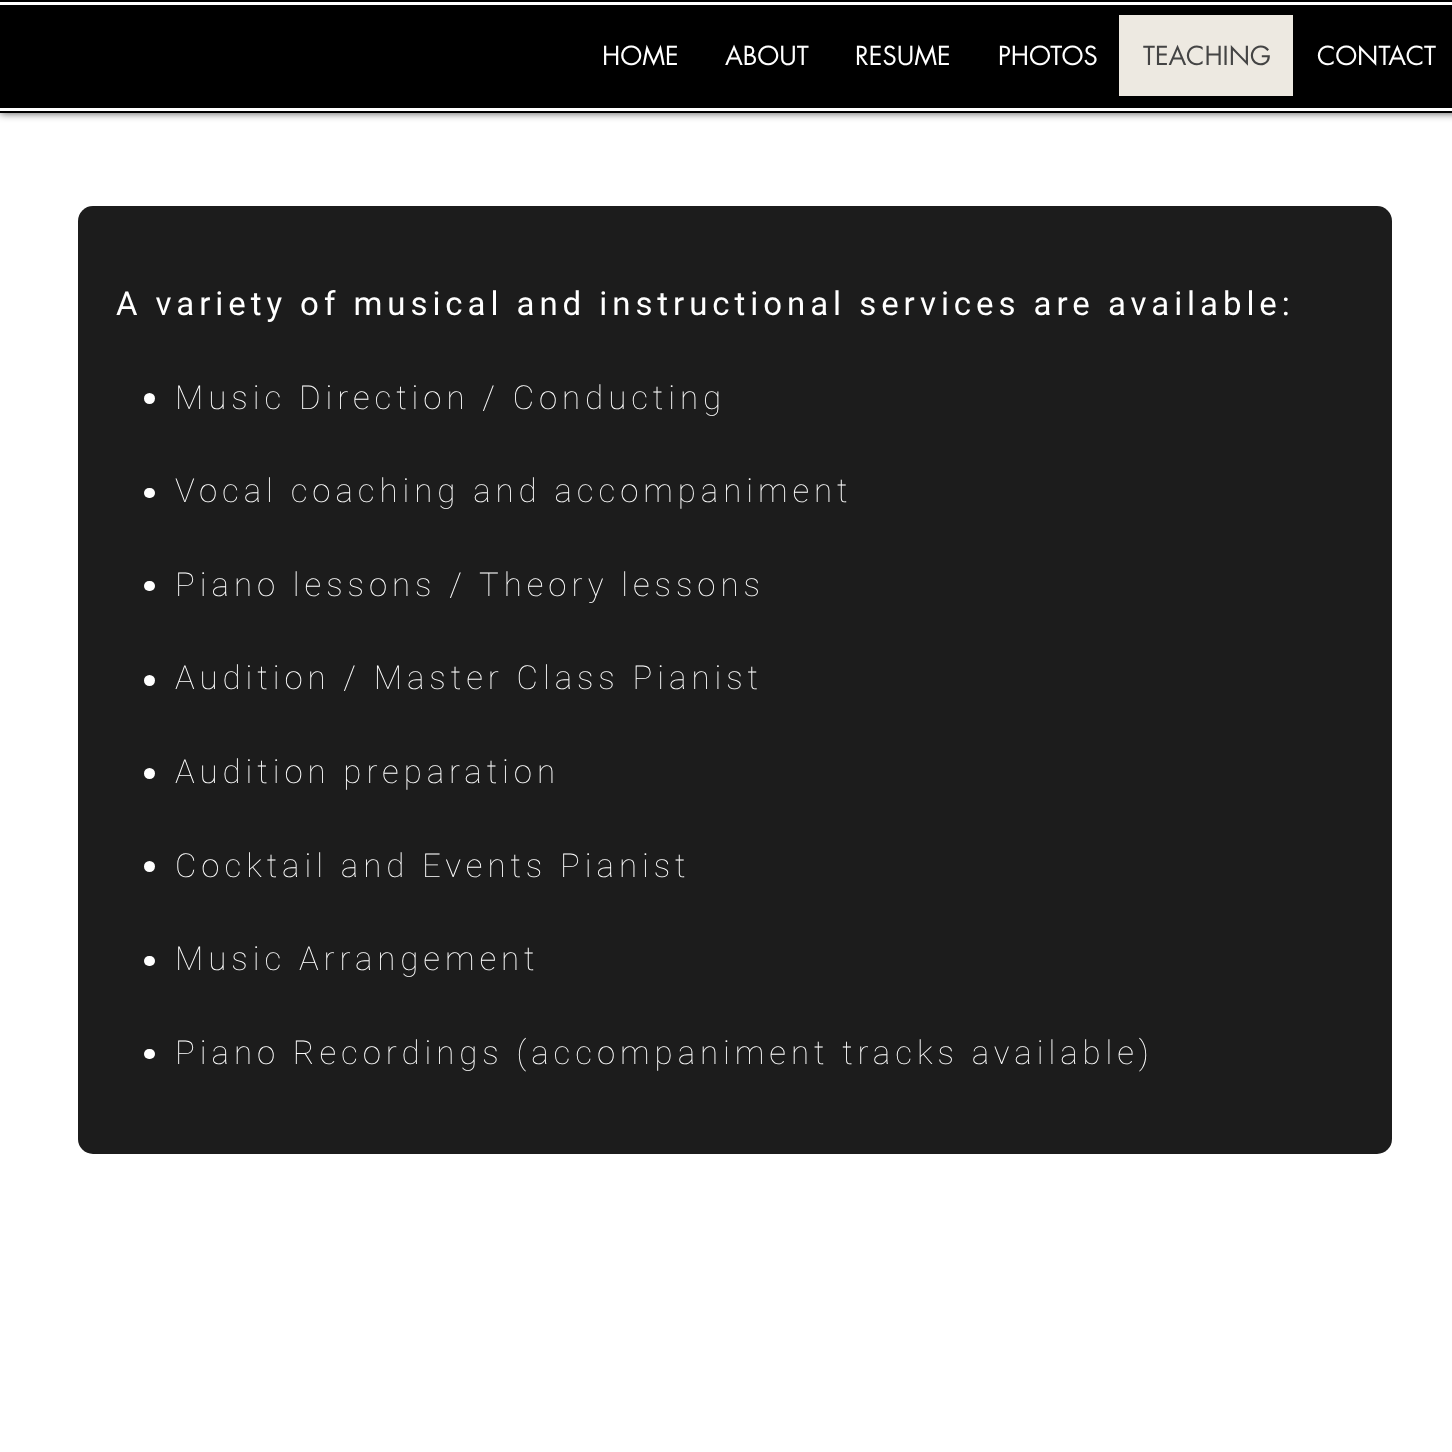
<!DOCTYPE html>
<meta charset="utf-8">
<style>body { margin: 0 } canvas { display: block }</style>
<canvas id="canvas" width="1452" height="1452"></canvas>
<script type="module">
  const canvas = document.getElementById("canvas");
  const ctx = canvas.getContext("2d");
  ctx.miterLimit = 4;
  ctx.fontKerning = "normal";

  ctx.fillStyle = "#ffffff";
  ctx.fillRect(0, 0, 1452, 1452);
  ctx.fillStyle = "rgba(0, 0, 0, 0.7)";
  ctx.filter = "blur(4px)";
  ctx.beginPath();
  ctx.rect(0, 0, 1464, 113);
  ctx.fill();
  ctx.filter = "none";
  ctx.fillStyle = "#000000";
  ctx.fillRect(0, 0, 1452, 113);
  ctx.fillStyle = "#ffffff";
  ctx.fillRect(0, 2, 1452, 3);
  ctx.fillRect(0, 108, 1452, 3);
  ctx.font = "25.5px futura";
  ctx.fillText("HOME", 602, 65);
  ctx.fillText("ABOUT", 725, 65);
  ctx.fillText("RESUME", 855, 65);
  ctx.fillText("PHOTOS", 998, 65);
  ctx.fillStyle = "#ede9e1";
  ctx.fillRect(1119, 15, 174, 81);
  ctx.fillStyle = "#444444";
  ctx.fillText("TEACHING", 1143, 65);
  ctx.fillStyle = "#ffffff";
  ctx.fillText("CONTACT", 1317, 65);
  ctx.fillStyle = "#1c1c1c";
  ctx.beginPath();
  ctx.roundRect(78, 206, 1314, 948, 15);
  ctx.fill();
  ctx.letterSpacing = "4.95px";
  ctx.font = "33px Roboto";
  ctx.fillStyle = "#ffffff";
  ctx.fillText("A variety of musical and instructional services are available:", 116, 315);
  ctx.beginPath();
  ctx.arc(149.5, 398.5, 5.5, 0, Math.PI * 2);
  ctx.fill();
  ctx.font = "100 33px Roboto";
  ctx.fillText("Music Direction / Conducting", 175, 409);
  ctx.beginPath();
  ctx.roundRect(144, 488, 11, 10, 5);
  ctx.fill();
  ctx.fillText("Vocal coaching and accompaniment", 175, 502);
  ctx.beginPath();
  ctx.roundRect(144, 581, 11, 10, 5);
  ctx.fill();
  ctx.fillText("Piano lessons / Theory lessons", 175, 596);
  ctx.beginPath();
  ctx.arc(149.5, 680.5, 5.5, 0, Math.PI * 2);
  ctx.fill();
  ctx.fillText("Audition / Master Class Pianist", 175, 689);
  ctx.beginPath();
  ctx.arc(149.5, 773.5, 5.5, 0, Math.PI * 2);
  ctx.fill();
  ctx.fillText("Audition preparation", 175, 783);
  ctx.beginPath();
  ctx.arc(149.5, 866.5, 5.5, 0, Math.PI * 2);
  ctx.fill();
  ctx.fillText("Cocktail and Events Pianist", 175, 877);
  ctx.beginPath();
  ctx.roundRect(144, 956, 11, 10, 5);
  ctx.fill();
  ctx.fillText("Music Arrangement", 175, 970);
  ctx.beginPath();
  ctx.roundRect(144, 1049, 11, 10, 5);
  ctx.fill();
  ctx.fillText("Piano Recordings (accompaniment tracks available)", 175, 1064);
</script>
